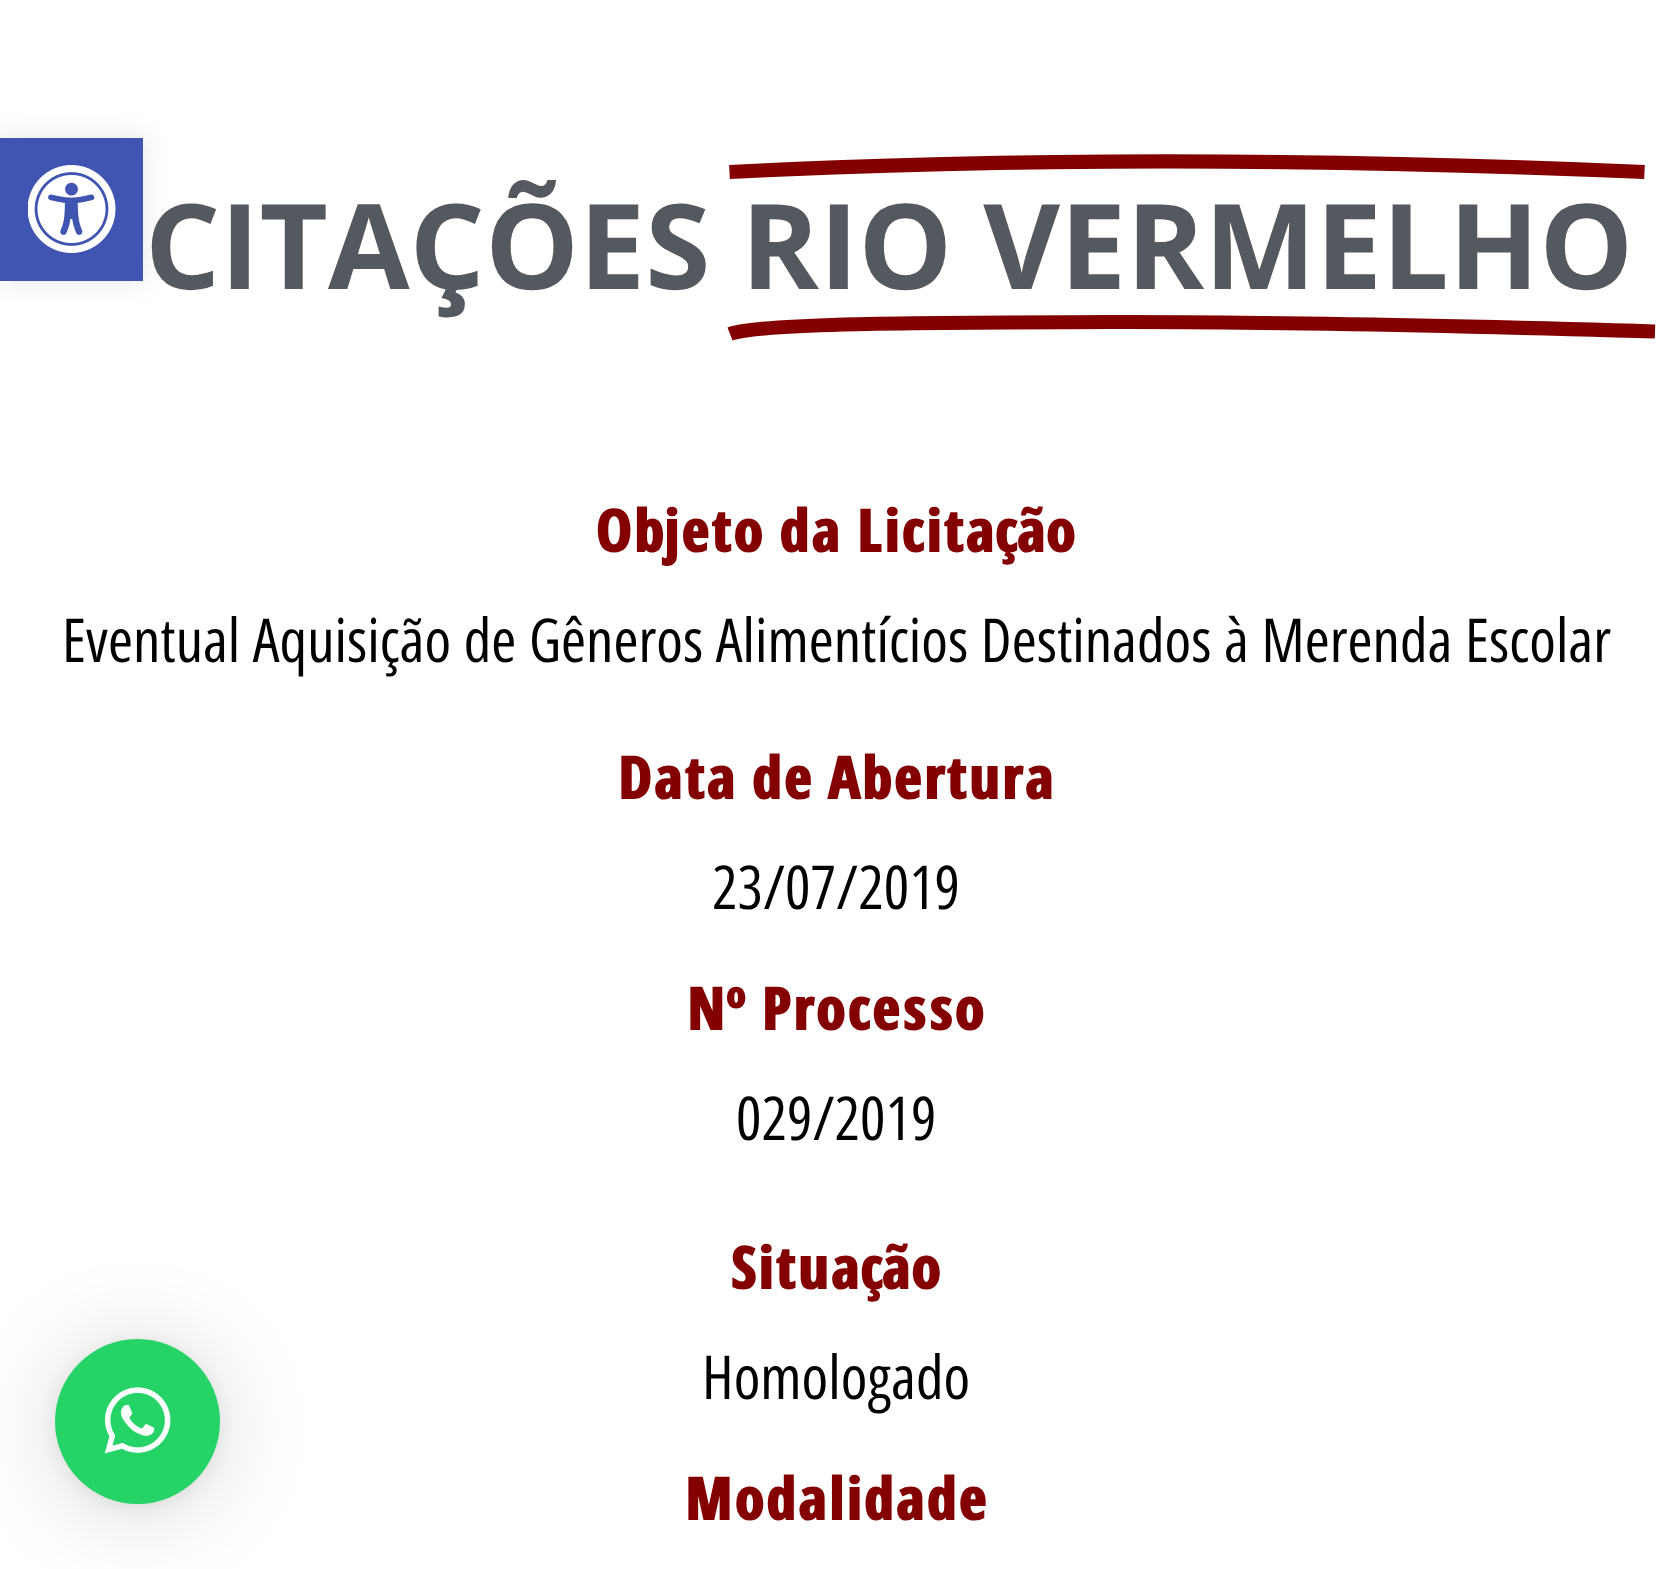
<!DOCTYPE html>
<meta charset="utf-8">
<style>body { margin: 0 } canvas { display: block }</style>
<canvas id="canvas" width="1671" height="1569"></canvas>
<script type="module">
  const canvas = document.getElementById("canvas");
  const ctx = canvas.getContext("2d");
  ctx.miterLimit = 4;
  ctx.fontKerning = "normal";
  async function loadImage(src) {
    const img = new Image();
    img.src = src;
    await img.decode();
    return img;
  }

  ctx.fillStyle = "#ffffff";
  ctx.fillRect(0, 0, 1671, 1569);
  ctx.fillStyle = "rgba(0, 0, 0, 0.1)";
  ctx.filter = "blur(14px)";
  ctx.beginPath();
  ctx.rect(0, 138, 143, 143);
  ctx.fill();
  ctx.filter = "none";
  ctx.fillStyle = "#4054b2";
  ctx.fillRect(0, 138, 143, 143);
  ctx.drawImage(await loadImage("img1.png"), 28, 165, 88, 88);
  ctx.beginPath();
  ctx.moveTo(730, 334);
  ctx.bezierCurveTo(757, 323.5, 915, 322.5, 1110.5, 322);
  ctx.bezierCurveTo(1342, 321.5, 1655, 331.5, 1655, 331.5);
  ctx.strokeStyle = "#840000";
  ctx.lineWidth = 14.2;
  ctx.stroke();
  ctx.beginPath();
  ctx.moveTo(729.5, 172);
  ctx.bezierCurveTo(1034, 156.5, 1340, 159, 1644.5, 172);
  ctx.stroke();
  ctx.font = "bold 118.25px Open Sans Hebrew";
  ctx.fillStyle = "#54595f";
  ctx.fillText("CITAÇÕES RIO VERMELHO", 145, 289);
  ctx.font = "800 60.5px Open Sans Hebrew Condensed";
  ctx.fillStyle = "#840000";
  ctx.fillText("Objeto da Licitação", 595, 552);
  ctx.font = "60.5px Open Sans Hebrew Condensed";
  ctx.fillStyle = "#000000";
  ctx.fillText("Eventual Aquisição de Gêneros Alimentícios Destinados à Merenda Escolar", 62, 662);
  ctx.font = "800 60.5px Open Sans Hebrew Condensed";
  ctx.fillStyle = "#840000";
  ctx.fillText("Data de Abertura", 617, 799);
  ctx.font = "60.5px Open Sans Hebrew Condensed";
  ctx.fillStyle = "#000000";
  ctx.fillText("23/07/2019", 712, 909);
  ctx.font = "800 60.5px Open Sans Hebrew Condensed";
  ctx.fillStyle = "#840000";
  ctx.fillText("Nº Processo", 686, 1030);
  ctx.font = "60.5px Open Sans Hebrew Condensed";
  ctx.fillStyle = "#000000";
  ctx.fillText("029/2019", 736, 1140);
  ctx.font = "800 60.5px Open Sans Hebrew Condensed";
  ctx.fillStyle = "#840000";
  ctx.fillText("Situação", 730, 1289);
  ctx.font = "60.5px Open Sans Hebrew Condensed";
  ctx.fillStyle = "#000000";
  ctx.fillText("Homologado", 702, 1399);
  ctx.font = "800 60.5px Open Sans Hebrew Condensed";
  ctx.fillStyle = "#840000";
  ctx.fillText("Modalidade", 684, 1520);
  ctx.fillStyle = "rgba(0, 0, 0, 0.16)";
  ctx.filter = "blur(44px)";
  ctx.beginPath();
  ctx.roundRect(55, 1345, 165, 165, 82.5);
  ctx.fill();
  ctx.filter = "none";
  ctx.fillStyle = "rgba(0, 0, 0, 0.06)";
  ctx.filter = "blur(8px)";
  ctx.beginPath();
  ctx.roundRect(55, 1342, 165, 165, 82.5);
  ctx.fill();
  ctx.filter = "none";
  ctx.fillStyle = "#25d366";
  ctx.beginPath();
  ctx.arc(137.5, 1421.5, 82.5, 0, Math.PI * 2);
  ctx.fill();
  ctx.drawImage(await loadImage("img2.png"), 104, 1387, 67, 67);
</script>
